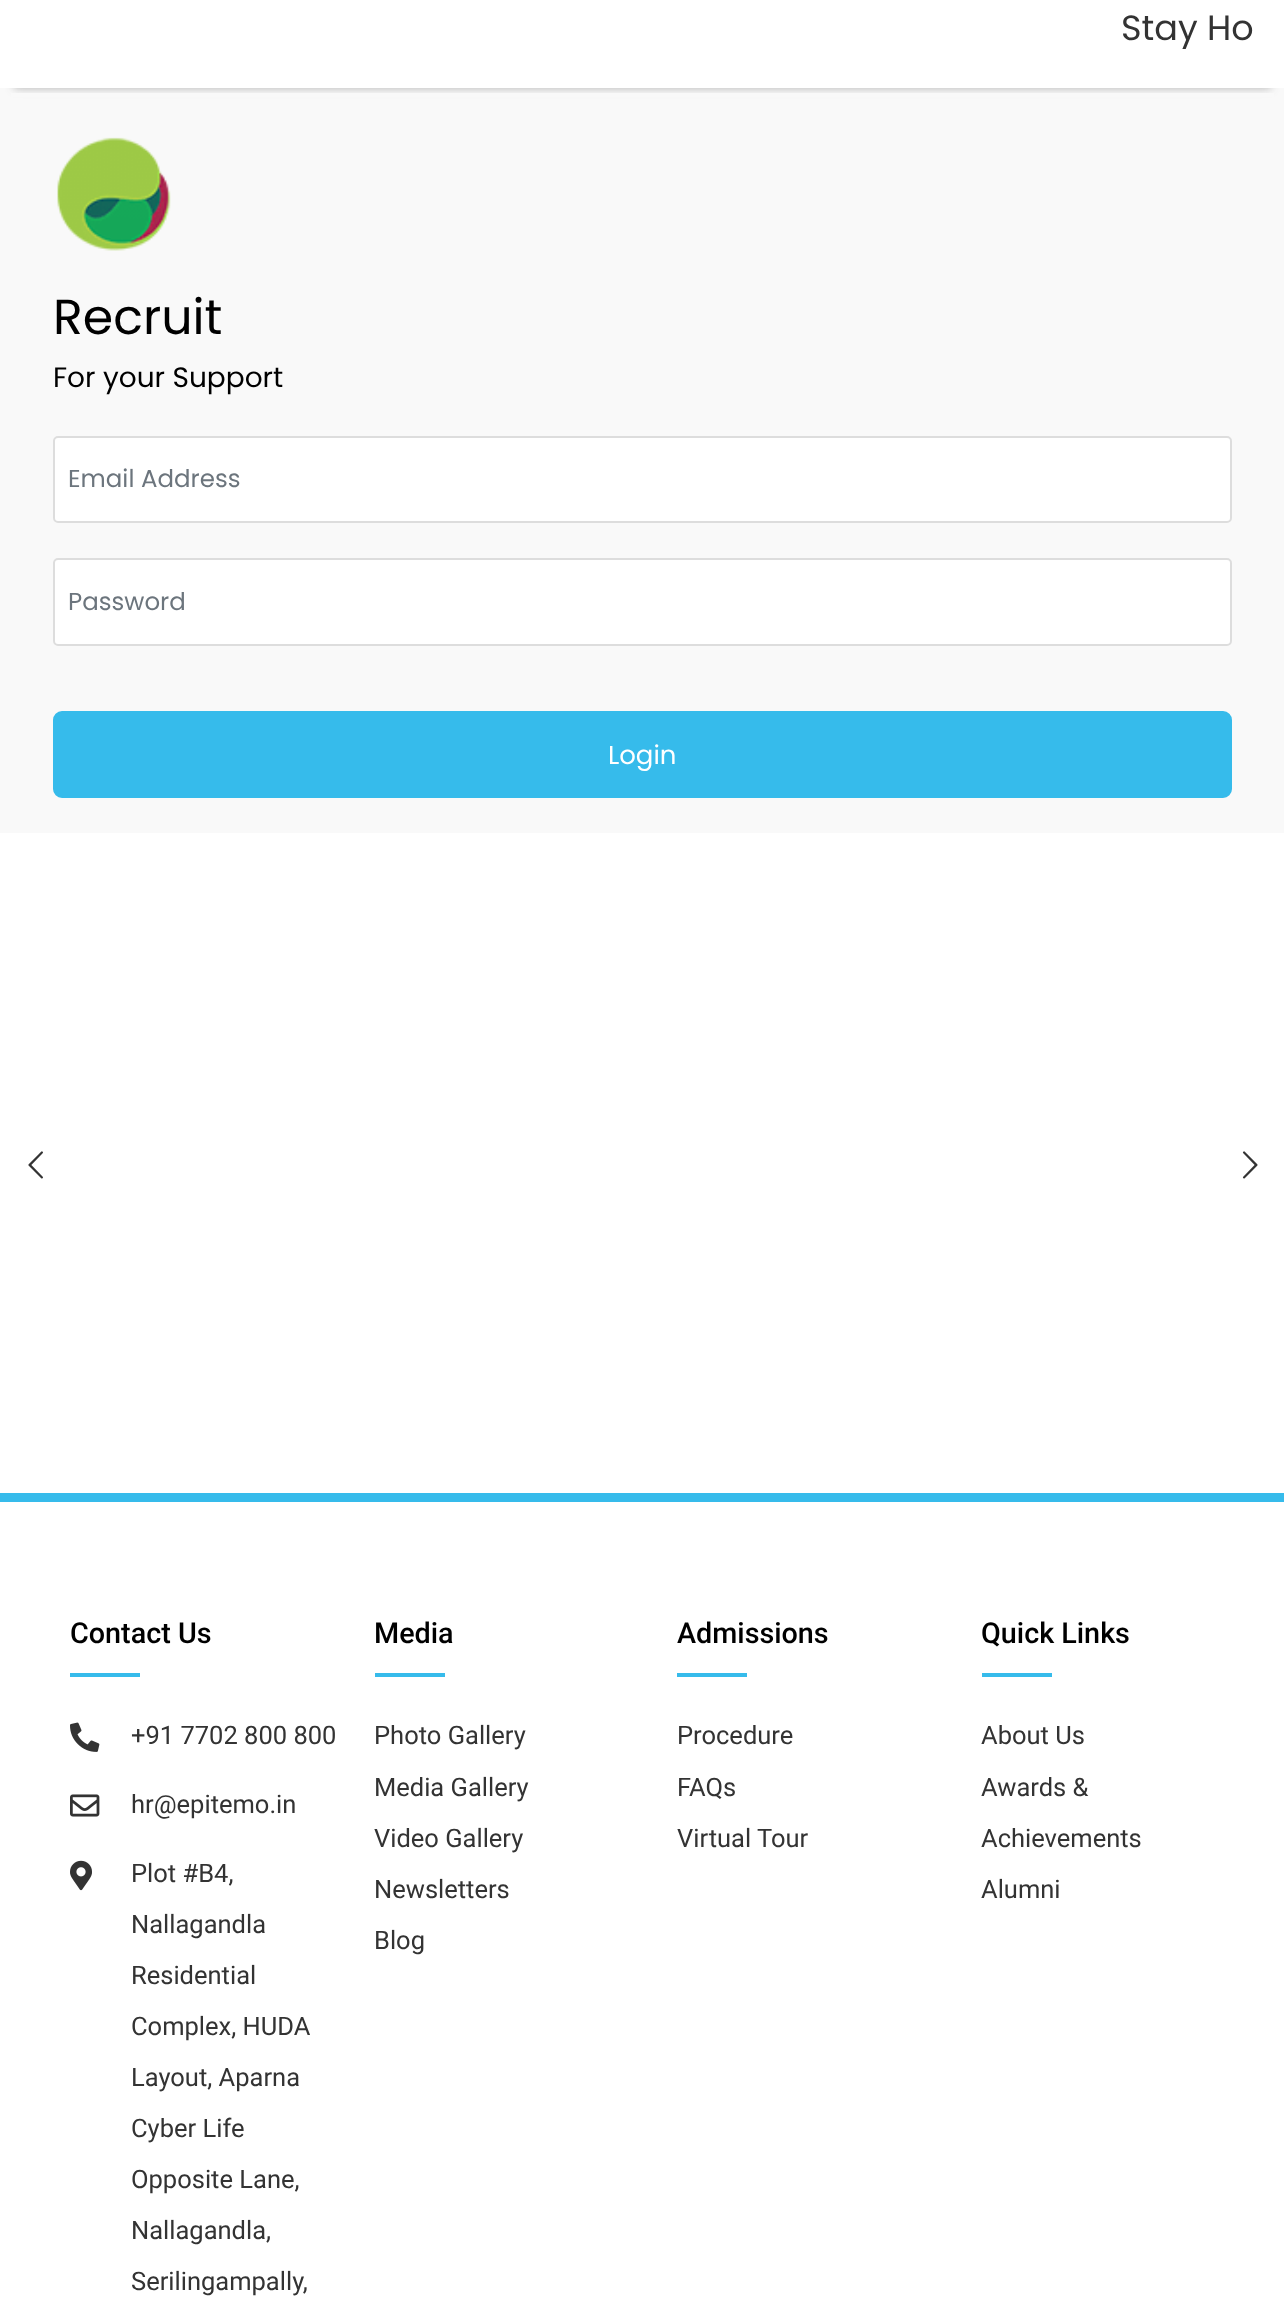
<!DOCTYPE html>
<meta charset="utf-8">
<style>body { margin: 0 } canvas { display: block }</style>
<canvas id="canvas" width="1284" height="2307"></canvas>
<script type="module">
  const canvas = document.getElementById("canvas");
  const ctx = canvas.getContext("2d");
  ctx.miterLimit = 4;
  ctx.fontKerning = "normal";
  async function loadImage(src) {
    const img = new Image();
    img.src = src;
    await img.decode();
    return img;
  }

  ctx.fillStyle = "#f9f9f9";
  ctx.fillRect(0, 0, 1284, 2307);
  ctx.fillStyle = "rgba(51, 51, 51, 0.36)";
  ctx.filter = "blur(5px)";
  ctx.beginPath();
  ctx.rect(14, 28, 1257, 60);
  ctx.fill();
  ctx.filter = "none";
  ctx.fillStyle = "#ffffff";
  ctx.fillRect(0, 0, 1284, 88);
  ctx.font = "35px Poppins";
  ctx.fillStyle = "#333333";
  ctx.fillText("Stay Ho", 1121, 40);
  ctx.fillStyle = "#ffffff";
  ctx.fillRect(0, 833, 1284, 660);
  ctx.fillStyle = "#f9f9f9";
  ctx.fillRect(11, 93, 1263, 4);
  ctx.drawImage(await loadImage("img1.png"), 57, 137, 114, 114);
  ctx.font = "49px Poppins";
  ctx.fillStyle = "#000000";
  ctx.fillText("Recruit", 53, 334);
  ctx.font = "28px Poppins";
  ctx.fillText("For your Support", 53, 387);
  ctx.fillStyle = "#ffffff";
  ctx.beginPath();
  ctx.roundRect(54, 437, 1177, 85, 4);
  ctx.fill();
  ctx.strokeStyle = "#dddddd";
  ctx.lineWidth = 2;
  ctx.stroke();
  ctx.font = "24.5px Poppins";
  ctx.fillStyle = "#6c757d";
  ctx.fillText("Email Address", 68, 487);
  ctx.fillStyle = "#ffffff";
  ctx.beginPath();
  ctx.roundRect(54, 559, 1177, 86, 4);
  ctx.fill();
  ctx.stroke();
  ctx.fillStyle = "#6c757d";
  ctx.fillText("Password", 68, 610);
  ctx.fillStyle = "#36bbeb";
  ctx.beginPath();
  ctx.roundRect(54, 712, 1177, 85, 8);
  ctx.fill();
  ctx.strokeStyle = "#36bbeb";
  ctx.stroke();
  ctx.font = "26px Poppins";
  ctx.fillStyle = "#ffffff";
  ctx.fillText("Login", 608, 764);
  ctx.drawImage(await loadImage("img2.png"), 28, 1151, 15, 28);
  ctx.drawImage(await loadImage("img3.png"), 1242, 1151, 16, 28);
  ctx.fillRect(0, 1502, 1284, 805);
  ctx.fillStyle = "#36bbeb";
  ctx.fillRect(0, 1493, 1284, 9);
  ctx.font = "500 28.75px Roboto";
  ctx.fillStyle = "#000000";
  ctx.fillText("Contact Us", 70, 1643);
  ctx.fillStyle = "#36bbeb";
  ctx.fillRect(70, 1673, 70, 4);
  ctx.drawImage(await loadImage("img4.png"), 70, 1722, 30, 30);
  ctx.font = "25.5px Roboto";
  ctx.fillStyle = "#333333";
  ctx.fillText("+91 7702 800 800", 131, 1744);
  ctx.drawImage(await loadImage("img5.png"), 70, 1794, 30, 23);
  ctx.fillText("hr@epitemo.in", 131, 1813);
  ctx.drawImage(await loadImage("img6.png"), 70, 1860, 22, 31);
  ctx.fillText("Plot #B4,", 131, 1882);
  ctx.fillText("Nallagandla", 131, 1933);
  ctx.fillText("Residential", 131, 1984);
  ctx.fillText("Complex, HUDA", 131, 2035);
  ctx.fillText("Layout, Aparna", 131, 2086);
  ctx.fillText("Cyber Life", 131, 2137);
  ctx.fillText("Opposite Lane,", 131, 2188);
  ctx.fillText("Nallagandla,", 131, 2239);
  ctx.fillText("Serilingampally,", 131, 2290);
  ctx.font = "500 28.75px Roboto";
  ctx.fillStyle = "#000000";
  ctx.fillText("Media", 374, 1643);
  ctx.fillStyle = "#36bbeb";
  ctx.fillRect(375, 1673, 70, 4);
  ctx.font = "25.5px Roboto";
  ctx.fillStyle = "#333333";
  ctx.fillText("Photo Gallery", 374, 1744);
  ctx.fillText("Media Gallery", 374, 1796);
  ctx.fillText("Video Gallery", 374, 1847);
  ctx.fillText("Newsletters", 374, 1898);
  ctx.fillText("Blog", 374, 1949);
  ctx.font = "500 28.75px Roboto";
  ctx.fillStyle = "#000000";
  ctx.fillText("Admissions", 677, 1643);
  ctx.fillStyle = "#36bbeb";
  ctx.fillRect(677, 1673, 70, 4);
  ctx.font = "25.5px Roboto";
  ctx.fillStyle = "#333333";
  ctx.fillText("Procedure", 677, 1744);
  ctx.fillText("FAQs", 677, 1796);
  ctx.fillText("Virtual Tour", 677, 1847);
  ctx.font = "500 28.75px Roboto";
  ctx.fillStyle = "#000000";
  ctx.fillText("Quick Links", 981, 1643);
  ctx.fillStyle = "#36bbeb";
  ctx.fillRect(982, 1673, 70, 4);
  ctx.font = "25.5px Roboto";
  ctx.fillStyle = "#333333";
  ctx.fillText("About Us", 981, 1744);
  ctx.fillText("Awards &", 981, 1796);
  ctx.fillText("Achievements", 981, 1847);
  ctx.fillText("Alumni", 981, 1898);
</script>
